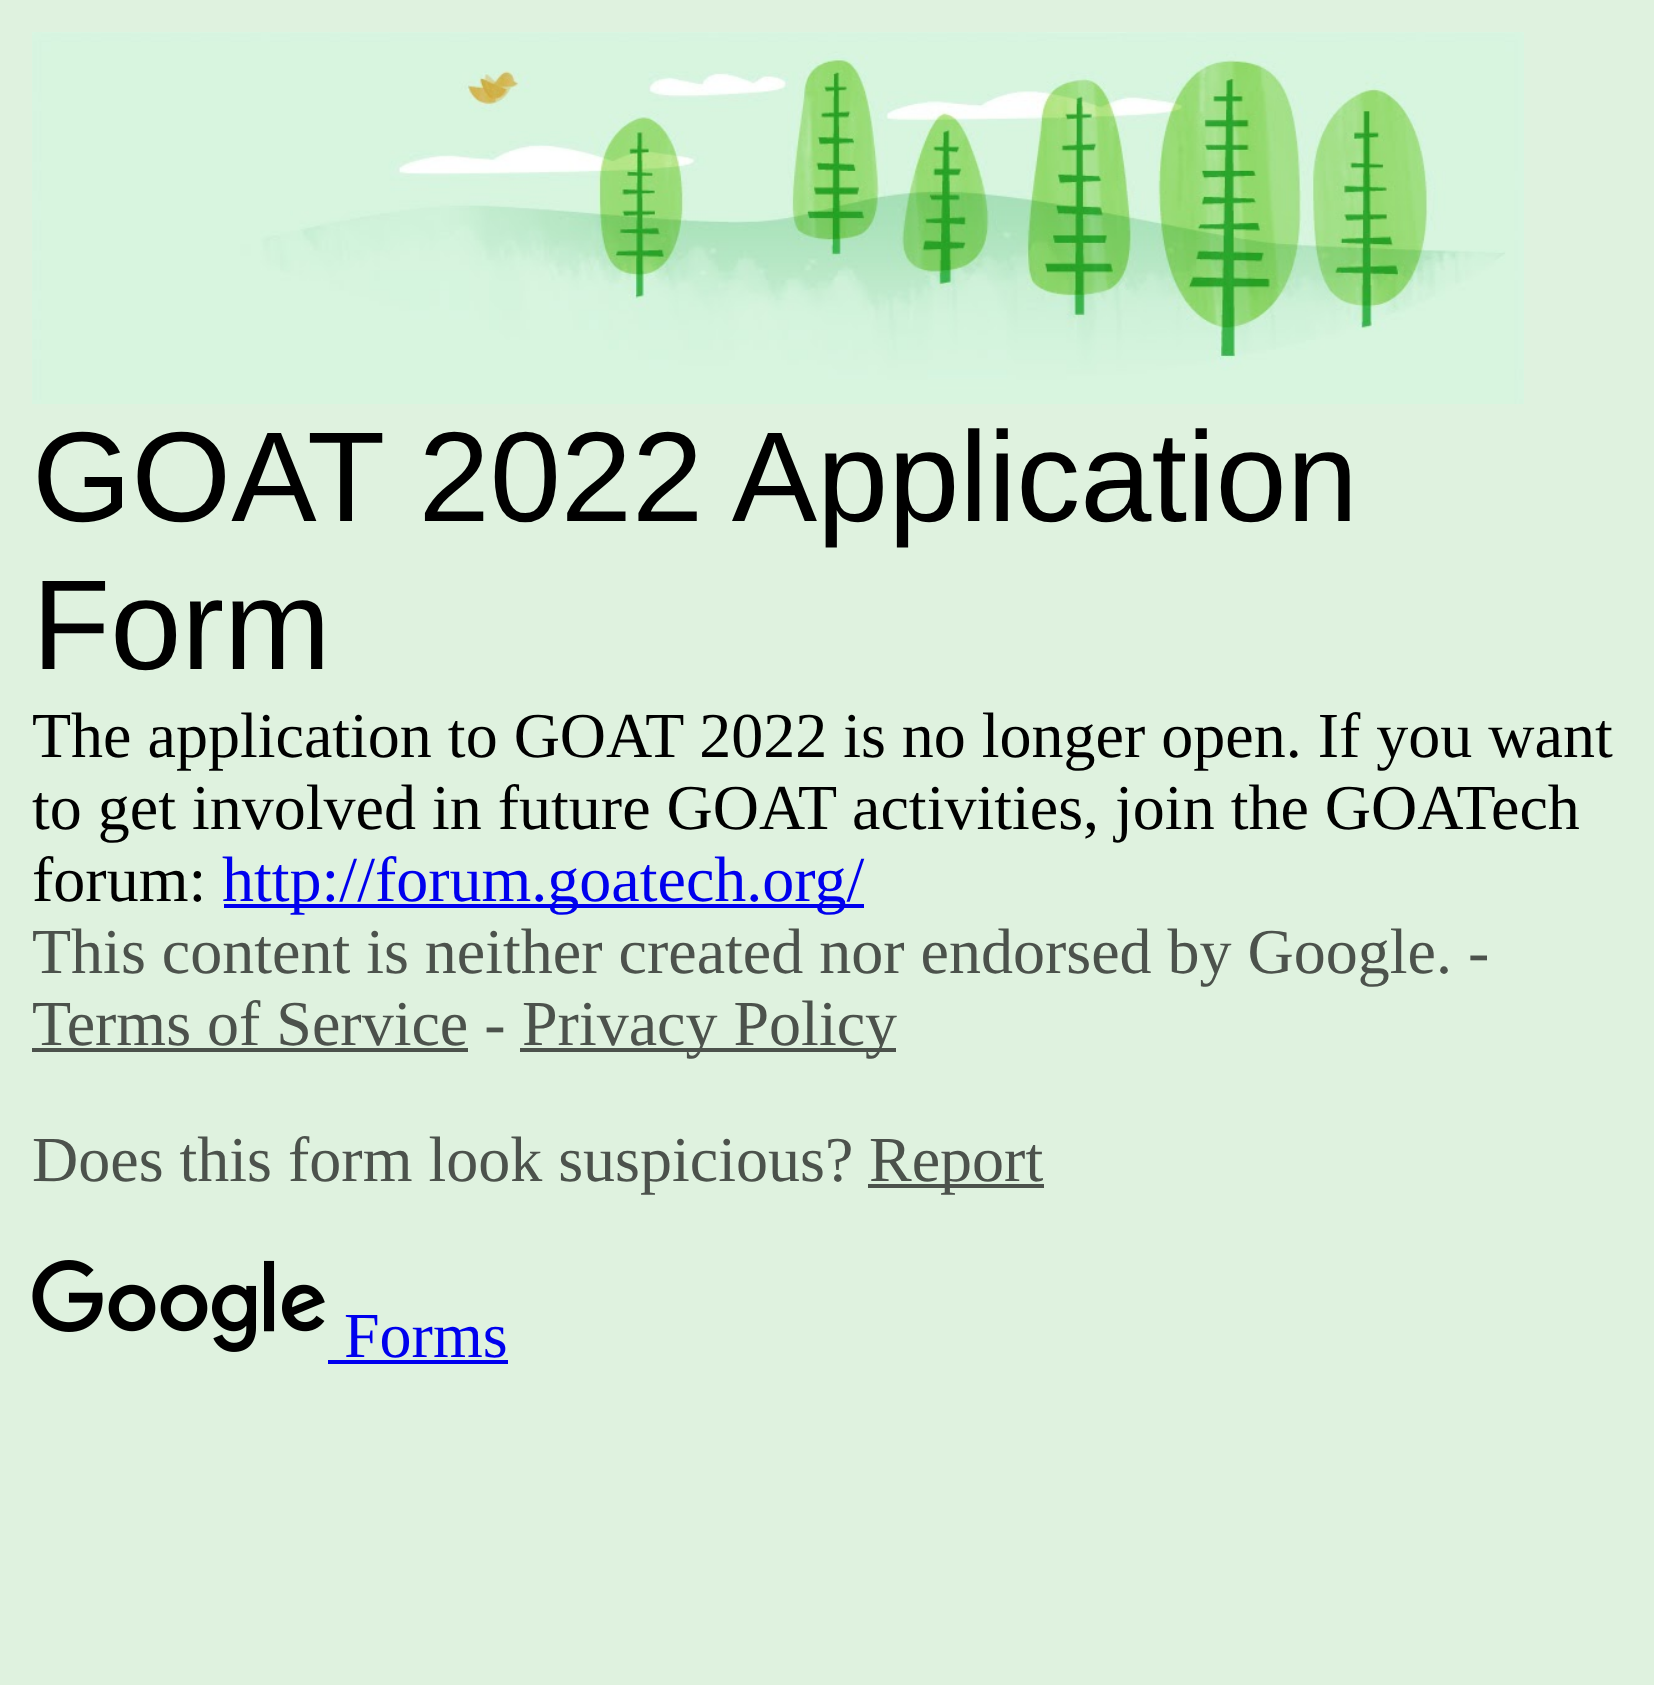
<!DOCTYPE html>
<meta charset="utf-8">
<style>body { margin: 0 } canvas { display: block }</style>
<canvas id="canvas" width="1654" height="1685"></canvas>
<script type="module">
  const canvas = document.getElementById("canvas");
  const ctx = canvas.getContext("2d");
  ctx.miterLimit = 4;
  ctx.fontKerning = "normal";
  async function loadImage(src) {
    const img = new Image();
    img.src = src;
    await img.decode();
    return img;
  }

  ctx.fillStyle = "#dff2df";
  ctx.fillRect(0, 0, 1654, 1685);
  ctx.drawImage(await loadImage("img1.png"), 32, 32, 1492, 372);
  ctx.font = "128px Liberation Sans";
  ctx.fillStyle = "#000000";
  ctx.fillText("GOAT 2022 Application", 32, 521);
  ctx.fillText("Form", 32, 669);
  ctx.font = "64px Liberation Serif";
  ctx.fillText("The application to GOAT 2022 is no longer open. If you want", 32, 757);
  ctx.fillText("to get involved in future GOAT activities, join the GOATech", 32, 829);
  ctx.fillText("forum:", 32, 901);
  ctx.fillStyle = "#0000ee";
  ctx.fillRect(224, 904, 640, 4);
  ctx.fillText("http://forum.goatech.org/", 222, 901);
  ctx.fillStyle = "#4c524c";
  ctx.fillText("This content is neither created nor endorsed by Google. -", 32, 973);
  ctx.fillText("Terms of Service -", 32, 1045);
  ctx.fillRect(32, 1048, 436, 4);
  ctx.fillRect(520, 1048, 376, 4);
  ctx.fillText("Privacy Policy", 522, 1045);
  ctx.fillText("Does this form look suspicious?", 32, 1181);
  ctx.fillRect(868, 1184, 176, 4);
  ctx.fillText("Report", 869, 1181);
  ctx.drawImage(await loadImage("img2.png"), 32, 1260, 293, 92);
  ctx.fillStyle = "#0000ee";
  ctx.fillText("Forms", 344, 1357);
  ctx.fillRect(328, 1360, 180, 4);
</script>
